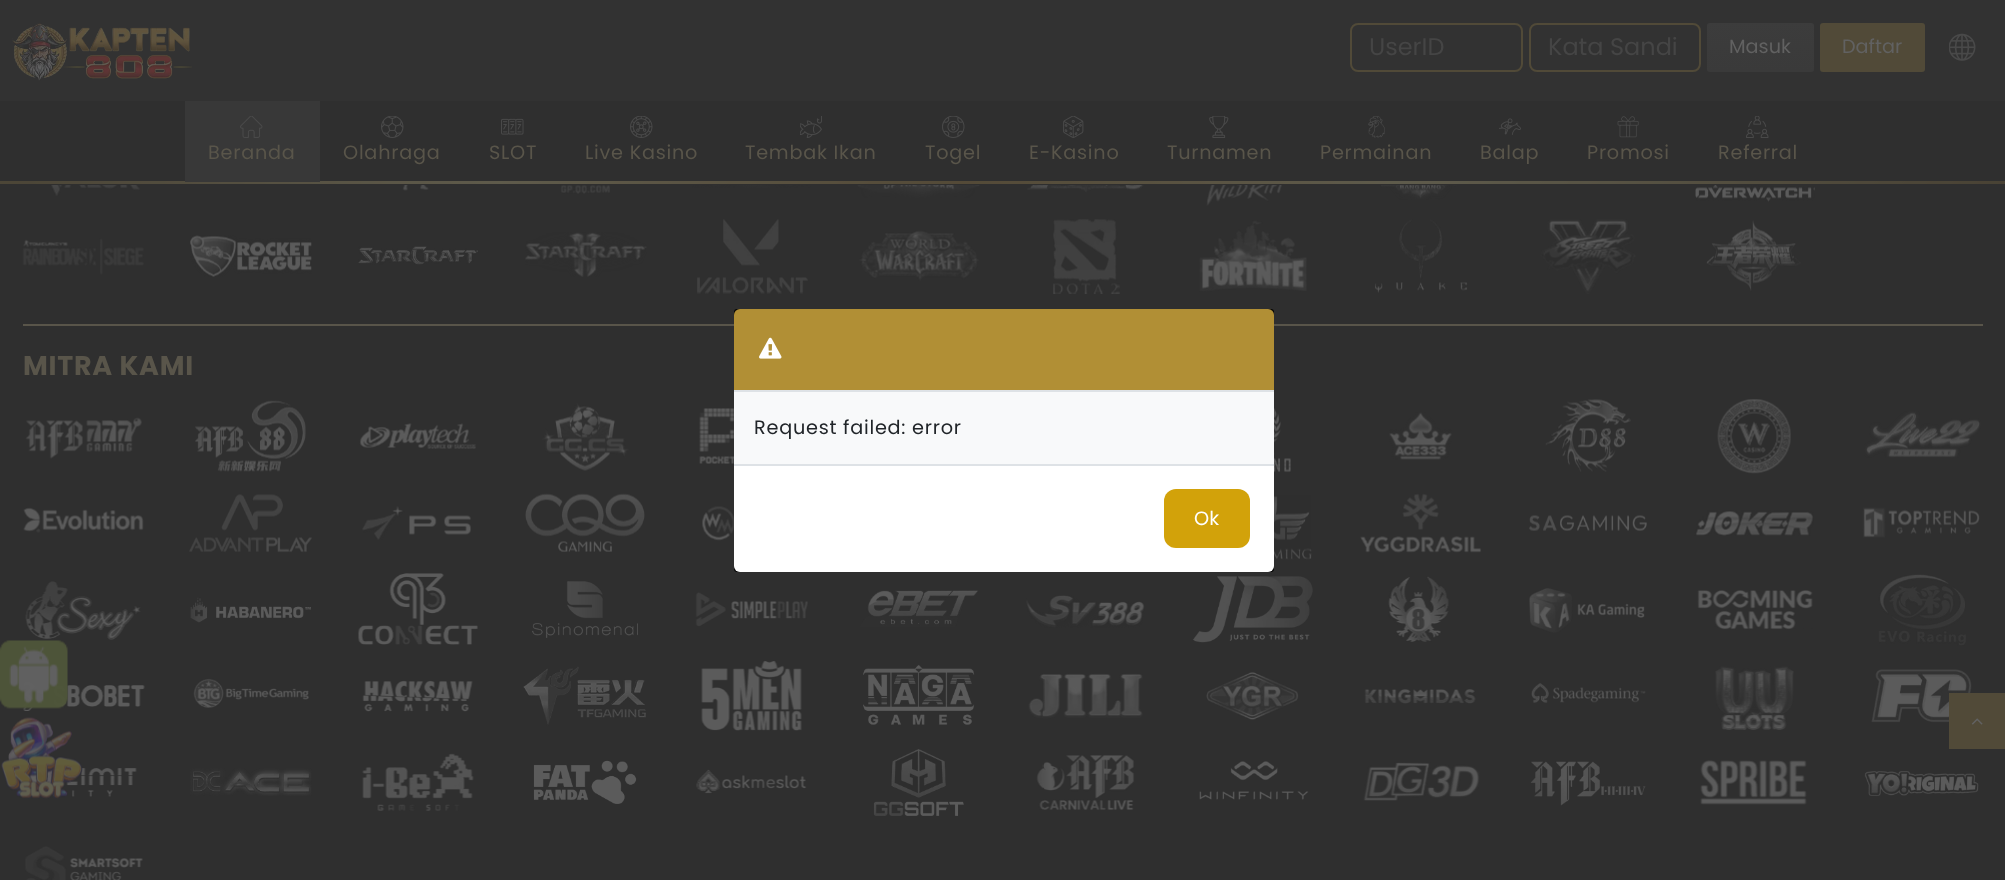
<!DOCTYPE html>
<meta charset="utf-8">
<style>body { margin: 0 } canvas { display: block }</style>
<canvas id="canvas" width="2005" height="880"></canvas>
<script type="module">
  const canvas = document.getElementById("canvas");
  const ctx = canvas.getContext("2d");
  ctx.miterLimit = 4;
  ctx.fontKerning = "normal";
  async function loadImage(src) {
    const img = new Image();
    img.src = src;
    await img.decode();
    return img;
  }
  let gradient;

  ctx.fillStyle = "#2f2f2f";
  ctx.fillRect(0, 0, 2005, 880);
  ctx.fillStyle = "#323232";
  ctx.fillRect(0, 0, 2005, 101);
  ctx.drawImage(await loadImage("img1.png"), 12, 23, 180, 58);
  ctx.beginPath();
  ctx.roundRect(1351, 24, 171, 47, 7);
  ctx.strokeStyle = "#514a38";
  ctx.lineWidth = 2;
  ctx.stroke();
  ctx.font = "24px Poppins";
  ctx.fillStyle = "#454545";
  ctx.fillText("UserID", 1369, 55);
  ctx.beginPath();
  ctx.roundRect(1530, 24, 170, 47, 7);
  ctx.stroke();
  ctx.fillText("Kata Sandi", 1548, 55);
  gradient = ctx.createLinearGradient(1760, 22, 1760, 72);
  gradient.addColorStop(0, "#3c3c3c");
  gradient.addColorStop(1, "#3a3a3a");
  ctx.fillStyle = gradient;
  ctx.beginPath();
  ctx.roundRect(1707, 23, 107, 49, 3);
  ctx.fill();
  ctx.font = "19.25px Poppins";
  ctx.fillStyle = "#616161";
  ctx.fillText("Masuk", 1729, 53);
  ctx.fillStyle = "#514a38";
  ctx.beginPath();
  ctx.roundRect(1820, 23, 105, 49, 3);
  ctx.fill();
  ctx.fillStyle = "#616161";
  ctx.fillText("Daftar", 1842, 53);
  ctx.drawImage(await loadImage("img2.png"), 1949, 33, 27, 28);
  ctx.drawImage(await loadImage("img3.png"), 0, 181, 2005, 3);
  ctx.fillStyle = "#383838";
  ctx.fillRect(185, 101, 135, 81);
  ctx.drawImage(await loadImage("img4.png"), 240, 116, 23, 22);
  ctx.letterSpacing = "0.75px";
  ctx.fillStyle = "#59554a";
  ctx.fillText("Beranda", 208, 159);
  ctx.drawImage(await loadImage("img5.png"), 381, 116, 23, 22);
  ctx.fillText("Olahraga", 343, 159);
  ctx.drawImage(await loadImage("img6.png"), 501, 118, 23, 17);
  ctx.fillText("SLOT", 489, 159);
  ctx.drawImage(await loadImage("img7.png"), 630, 116, 23, 22);
  ctx.fillText("Live Kasino", 585, 159);
  ctx.drawImage(await loadImage("img8.png"), 800, 116, 22, 22);
  ctx.fillText("Tembak Ikan", 745, 159);
  ctx.drawImage(await loadImage("img9.png"), 942, 116, 23, 22);
  ctx.fillText("Togel", 925, 159);
  ctx.drawImage(await loadImage("img10.png"), 1063, 116, 21, 22);
  ctx.fillText("E-Kasino", 1029, 159);
  ctx.drawImage(await loadImage("img11.png"), 1209, 116, 20, 22);
  ctx.fillText("Turnamen", 1167, 159);
  ctx.drawImage(await loadImage("img12.png"), 1368, 116, 17, 22);
  ctx.fillText("Permainan", 1320, 159);
  ctx.drawImage(await loadImage("img13.png"), 1499, 118, 22, 17);
  ctx.fillText("Balap", 1480, 159);
  ctx.drawImage(await loadImage("img14.png"), 1617, 116, 22, 22);
  ctx.fillText("Promosi", 1587, 159);
  ctx.drawImage(await loadImage("img15.png"), 1746, 116, 23, 22);
  ctx.fillText("Referral", 1718, 159);
  ctx.drawImage(await loadImage("img16.png"), 50, 185, 90, 11);
  ctx.drawImage(await loadImage("img17.png"), 402, 185, 27, 6);
  ctx.drawImage(await loadImage("img18.png"), 560, 185, 51, 9);
  ctx.drawImage(await loadImage("img19.png"), 692, 185, 119, 3);
  ctx.drawImage(await loadImage("img20.png"), 857, 185, 123, 13);
  ctx.drawImage(await loadImage("img21.png"), 1027, 185, 117, 8);
  ctx.drawImage(await loadImage("img22.png"), 1206, 185, 77, 21);
  ctx.drawImage(await loadImage("img23.png"), 1380, 185, 78, 15);
  ctx.drawImage(await loadImage("img24.png"), 1695, 185, 120, 17);
  ctx.drawImage(await loadImage("img25.png"), 22, 238, 122, 37);
  ctx.drawImage(await loadImage("img26.png"), 190, 235, 122, 42);
  ctx.drawImage(await loadImage("img27.png"), 358, 246, 121, 19);
  ctx.drawImage(await loadImage("img28.png"), 525, 232, 122, 45);
  ctx.drawImage(await loadImage("img29.png"), 697, 219, 111, 75);
  ctx.drawImage(await loadImage("img30.png"), 859, 230, 120, 51);
  ctx.drawImage(await loadImage("img31.png"), 1053, 219, 67, 75);
  ctx.drawImage(await loadImage("img32.png"), 1199, 220, 108, 72);
  ctx.drawImage(await loadImage("img33.png"), 1375, 219, 93, 74);
  ctx.drawImage(await loadImage("img34.png"), 1540, 219, 96, 75);
  ctx.drawImage(await loadImage("img35.png"), 1706, 220, 95, 72);
  ctx.fillRect(23, 324, 1960, 2);
  ctx.font = "bold 27px Poppins";
  ctx.fillText("MITRA KAMI", 23, 375);
  ctx.drawImage(await loadImage("img36.png"), 25, 417, 117, 42);
  ctx.drawImage(await loadImage("img37.png"), 195, 400, 111, 72);
  ctx.drawImage(await loadImage("img38.png"), 359, 423, 117, 26);
  ctx.drawImage(await loadImage("img39.png"), 542, 403, 87, 68);
  ctx.drawImage(await loadImage("img40.png"), 699, 408, 35, 56);
  ctx.drawImage(await loadImage("img41.png"), 1274, 407, 17, 66);
  ctx.drawImage(await loadImage("img42.png"), 1389, 412, 63, 48);
  ctx.drawImage(await loadImage("img43.png"), 1545, 399, 86, 74);
  ctx.drawImage(await loadImage("img44.png"), 1717, 399, 74, 75);
  ctx.drawImage(await loadImage("img45.png"), 1864, 411, 117, 47);
  ctx.drawImage(await loadImage("img46.png"), 23, 507, 121, 26);
  ctx.drawImage(await loadImage("img47.png"), 189, 494, 123, 59);
  ctx.drawImage(await loadImage("img48.png"), 362, 506, 109, 34);
  ctx.drawImage(await loadImage("img49.png"), 525, 493, 120, 59);
  ctx.drawImage(await loadImage("img50.png"), 702, 506, 32, 35);
  ctx.drawImage(await loadImage("img51.png"), 1274, 495, 38, 65);
  ctx.drawImage(await loadImage("img52.png"), 1360, 493, 122, 60);
  ctx.drawImage(await loadImage("img53.png"), 1529, 515, 118, 16);
  ctx.drawImage(await loadImage("img54.png"), 1694, 510, 120, 26);
  ctx.drawImage(await loadImage("img55.png"), 1862, 507, 118, 31);
  ctx.drawImage(await loadImage("img56.png"), 25, 581, 116, 59);
  ctx.drawImage(await loadImage("img57.png"), 190, 597, 121, 26);
  ctx.drawImage(await loadImage("img58.png"), 358, 573, 120, 72);
  ctx.drawImage(await loadImage("img59.png"), 532, 581, 106, 57);
  ctx.drawImage(await loadImage("img60.png"), 695, 592, 114, 35);
  ctx.drawImage(await loadImage("img61.png"), 860, 590, 119, 37);
  ctx.drawImage(await loadImage("img62.png"), 1026, 595, 119, 33);
  ctx.drawImage(await loadImage("img63.png"), 1192, 576, 121, 67);
  ctx.drawImage(await loadImage("img64.png"), 1388, 576, 61, 66);
  ctx.drawImage(await loadImage("img65.png"), 1529, 588, 116, 45);
  ctx.drawImage(await loadImage("img66.png"), 1697, 590, 116, 40);
  ctx.drawImage(await loadImage("img67.png"), 1878, 574, 88, 72);
  ctx.drawImage(await loadImage("img68.png"), 22, 681, 123, 30);
  ctx.drawImage(await loadImage("img69.png"), 193, 678, 117, 30);
  ctx.drawImage(await loadImage("img70.png"), 362, 680, 111, 32);
  ctx.drawImage(await loadImage("img71.png"), 523, 666, 123, 60);
  ctx.drawImage(await loadImage("img72.png"), 701, 660, 101, 71);
  ctx.drawImage(await loadImage("img73.png"), 863, 664, 112, 61);
  ctx.drawImage(await loadImage("img74.png"), 1028, 673, 115, 46);
  ctx.drawImage(await loadImage("img75.png"), 1206, 672, 93, 48);
  ctx.drawImage(await loadImage("img76.png"), 1364, 689, 112, 15);
  ctx.drawImage(await loadImage("img77.png"), 1531, 683, 115, 20);
  ctx.drawImage(await loadImage("img78.png"), 1715, 666, 79, 64);
  ctx.drawImage(await loadImage("img79.png"), 1871, 669, 101, 54);
  ctx.drawImage(await loadImage("img80.png"), 30, 768, 107, 29);
  ctx.drawImage(await loadImage("img81.png"), 190, 768, 122, 28);
  ctx.drawImage(await loadImage("img82.png"), 362, 753, 112, 58);
  ctx.drawImage(await loadImage("img83.png"), 533, 760, 104, 44);
  ctx.drawImage(await loadImage("img84.png"), 696, 769, 111, 25);
  ctx.drawImage(await loadImage("img85.png"), 873, 749, 91, 67);
  ctx.drawImage(await loadImage("img86.png"), 1036, 755, 99, 55);
  ctx.drawImage(await loadImage("img87.png"), 1199, 761, 110, 39);
  ctx.drawImage(await loadImage("img88.png"), 1363, 762, 117, 40);
  ctx.drawImage(await loadImage("img89.png"), 1530, 761, 116, 45);
  ctx.drawImage(await loadImage("img90.png"), 1700, 760, 107, 45);
  ctx.drawImage(await loadImage("img91.png"), 1864, 771, 115, 26);
  ctx.drawImage(await loadImage("img92.png"), 25, 846, 118, 34);
  ctx.fillStyle = "rgba(0, 0, 0, 0.9)";
  ctx.beginPath();
  ctx.roundRect(734, 309, 540, 263, 3);
  ctx.fill();
  ctx.fillStyle = "#b18f35";
  ctx.beginPath();
  ctx.roundRect(734, 309, 540, 83, [6, 6, 0, 0]);
  ctx.fill();
  ctx.fillStyle = "#dee2e6";
  ctx.fillRect(734, 390, 540, 2);
  ctx.drawImage(await loadImage("img93.png"), 759, 337, 23, 22);
  ctx.fillStyle = "#f8f9fa";
  ctx.fillRect(734, 392, 540, 72);
  ctx.font = "19.25px Poppins";
  ctx.fillStyle = "#212529";
  ctx.fillText("Request failed: error", 754, 434);
  ctx.fillStyle = "#ffffff";
  ctx.beginPath();
  ctx.roundRect(734, 464, 540, 108, [0, 0, 6, 6]);
  ctx.fill();
  ctx.fillStyle = "#dee2e6";
  ctx.fillRect(734, 464, 540, 2);
  ctx.fillStyle = "#d2a20a";
  ctx.beginPath();
  ctx.roundRect(1164, 489, 86, 59, 12);
  ctx.fill();
  ctx.letterSpacing = "0px";
  ctx.fillStyle = "#ffffff";
  ctx.fillText("Ok", 1194, 525);
  ctx.drawImage(await loadImage("img94.png"), 0, 640, 68, 69);
  ctx.drawImage(await loadImage("img95.png"), 1, 717, 82, 82);
  ctx.fillStyle = "#514a38";
  ctx.fillRect(1949, 693, 56, 56);
  ctx.drawImage(await loadImage("img96.png"), 1971, 718, 12, 7);
</script>
